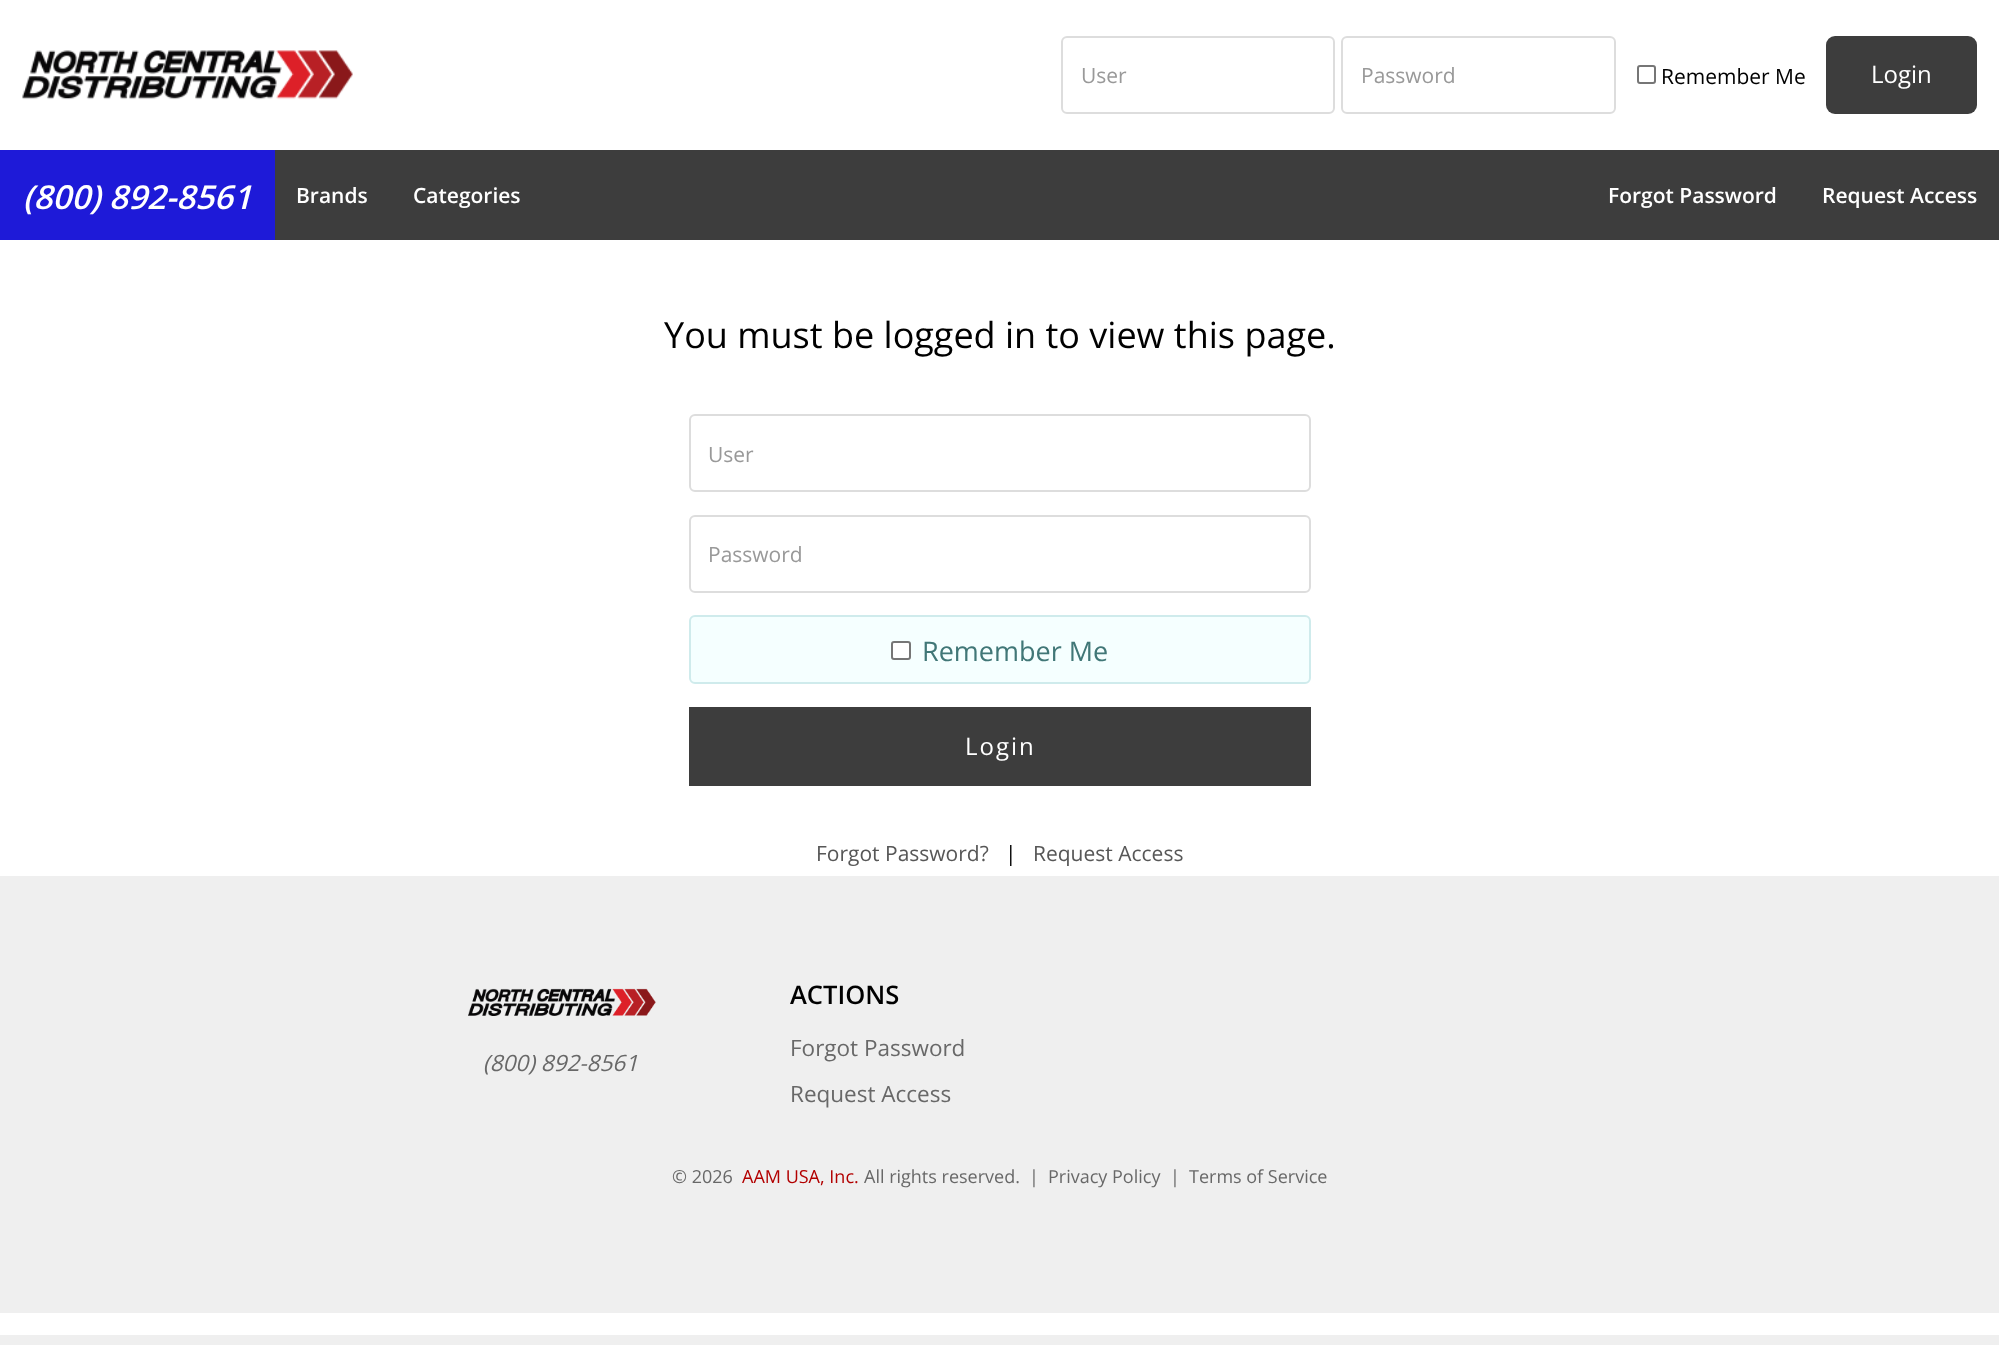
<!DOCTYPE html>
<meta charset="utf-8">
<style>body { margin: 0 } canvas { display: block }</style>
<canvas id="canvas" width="1999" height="1345"></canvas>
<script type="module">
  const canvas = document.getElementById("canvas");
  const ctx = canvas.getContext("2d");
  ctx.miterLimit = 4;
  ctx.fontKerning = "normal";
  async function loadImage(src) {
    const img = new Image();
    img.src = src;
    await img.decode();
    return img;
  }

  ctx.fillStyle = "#efefef";
  ctx.fillRect(0, 0, 1999, 1345);
  ctx.fillStyle = "#ffffff";
  ctx.fillRect(0, 0, 1999, 1335);
  ctx.drawImage(await loadImage("img1.png"), 22, 50, 331, 50);
  ctx.beginPath();
  ctx.roundRect(1062, 37, 272, 76, 5);
  ctx.strokeStyle = "#dddddd";
  ctx.lineWidth = 2;
  ctx.stroke();
  ctx.font = "21px Open Sans";
  ctx.fillStyle = "#999999";
  ctx.fillText("User", 1081, 83);
  ctx.beginPath();
  ctx.roundRect(1342, 37, 273, 76, 5);
  ctx.stroke();
  ctx.fillText("Password", 1361, 83);
  ctx.beginPath();
  ctx.roundRect(1638, 66, 17, 17, 2);
  ctx.strokeStyle = "#767676";
  ctx.stroke();
  ctx.fillStyle = "#000000";
  ctx.fillText("Remember Me", 1661, 84);
  ctx.fillStyle = "#3d3d3d";
  ctx.beginPath();
  ctx.roundRect(1826, 36, 151, 78, 9);
  ctx.fill();
  ctx.font = "24px Open Sans";
  ctx.fillStyle = "#ffffff";
  ctx.fillText("Login", 1871, 83);
  ctx.fillStyle = "#3d3d3d";
  ctx.fillRect(275, 150, 1724, 90);
  ctx.fillStyle = "#1e1ad8";
  ctx.fillRect(0, 150, 275, 90);
  ctx.font = "italic 600 33px Open Sans";
  ctx.fillStyle = "#ffffff";
  ctx.fillText("(800) 892-8561", 23, 209);
  ctx.font = "600 21px Open Sans";
  ctx.fillText("Brands", 296, 203);
  ctx.fillText("Categories", 413, 203);
  ctx.fillText("Forgot Password", 1608, 203);
  ctx.fillText("Request Access", 1822, 203);
  ctx.font = "36px Open Sans";
  ctx.fillStyle = "#000000";
  ctx.fillText("You must be logged in to view this page.", 664, 348);
  ctx.beginPath();
  ctx.roundRect(690, 415, 620, 76, 5);
  ctx.strokeStyle = "#dddddd";
  ctx.stroke();
  ctx.font = "21px Open Sans";
  ctx.fillStyle = "#999999";
  ctx.fillText("User", 708, 462);
  ctx.beginPath();
  ctx.roundRect(690, 516, 620, 76, 5);
  ctx.stroke();
  ctx.fillText("Password", 708, 562);
  ctx.fillStyle = "#f5ffff";
  ctx.beginPath();
  ctx.roundRect(690, 616, 620, 67, 5);
  ctx.fill();
  ctx.strokeStyle = "#cfebec";
  ctx.stroke();
  ctx.fillStyle = "#ffffff";
  ctx.beginPath();
  ctx.roundRect(892, 642, 18, 17, 2);
  ctx.fill();
  ctx.strokeStyle = "#767676";
  ctx.stroke();
  ctx.font = "27px Open Sans";
  ctx.fillStyle = "#417777";
  ctx.fillText("Remember Me", 922, 661);
  ctx.fillStyle = "#3d3d3d";
  ctx.fillRect(689, 707, 622, 79);
  ctx.letterSpacing = "2px";
  ctx.font = "24px Open Sans";
  ctx.fillStyle = "#ffffff";
  ctx.fillText("Login", 965, 755);
  ctx.letterSpacing = "0px";
  ctx.font = "21px Open Sans";
  ctx.fillStyle = "#575757";
  ctx.fillText("Forgot Password?", 816, 861);
  ctx.fillStyle = "#000000";
  ctx.fillText("|", 1005, 861);
  ctx.fillStyle = "#575757";
  ctx.fillText("Request Access", 1033, 861);
  ctx.fillStyle = "#efefef";
  ctx.fillRect(0, 876, 1999, 437);
  ctx.drawImage(await loadImage("img2.png"), 468, 988, 188, 28);
  ctx.font = "italic 22.5px Open Sans";
  ctx.fillStyle = "#686868";
  ctx.fillText("(800) 892-8561", 483, 1071);
  ctx.font = "600 25.5px Open Sans";
  ctx.fillStyle = "#000000";
  ctx.fillText("ACTIONS", 790, 1004);
  ctx.font = "22.5px Open Sans";
  ctx.fillStyle = "#686868";
  ctx.fillText("Forgot Password", 790, 1056);
  ctx.fillText("Request Access", 790, 1102);
  ctx.font = "18px Open Sans";
  ctx.fillText("© 2026", 672, 1183);
  ctx.fillStyle = "#b20000";
  ctx.fillText("AAM USA, Inc.", 742, 1183);
  ctx.fillStyle = "#686868";
  ctx.fillText("All rights reserved.", 864, 1183);
  ctx.fillText("|", 1029, 1183);
  ctx.fillText("Privacy Policy", 1048, 1183);
  ctx.fillText("|", 1170, 1183);
  ctx.fillText("Terms of Service", 1189, 1183);
</script>
